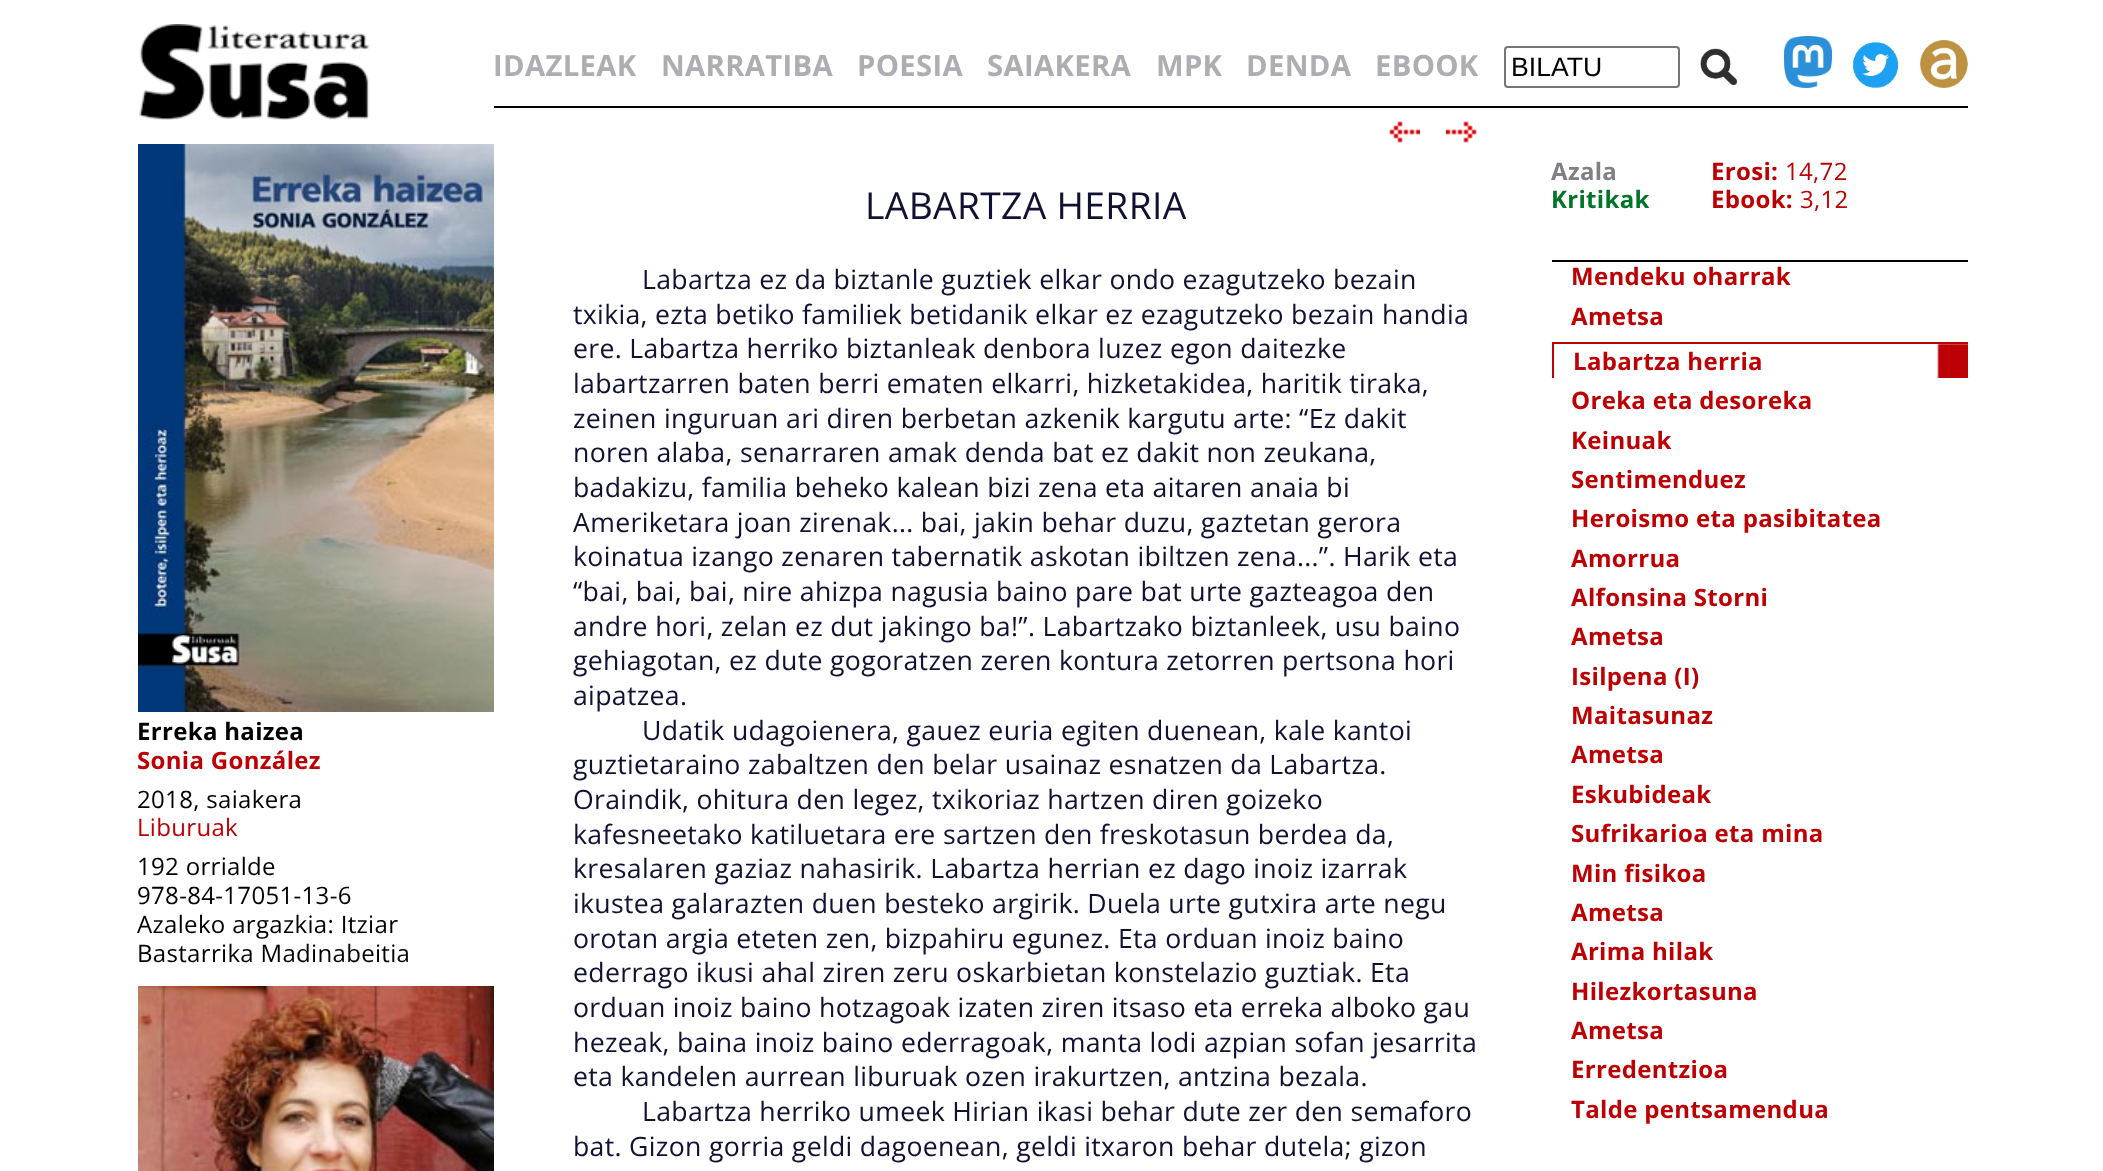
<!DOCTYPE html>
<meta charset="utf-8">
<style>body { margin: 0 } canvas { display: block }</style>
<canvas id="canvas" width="2103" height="1171"></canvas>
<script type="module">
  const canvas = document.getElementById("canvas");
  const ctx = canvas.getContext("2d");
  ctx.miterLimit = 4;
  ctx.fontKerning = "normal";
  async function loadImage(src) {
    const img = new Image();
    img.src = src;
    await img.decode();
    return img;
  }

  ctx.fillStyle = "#ffffff";
  ctx.fillRect(0, 0, 2103, 1171);
  ctx.drawImage(await loadImage("img1.png"), 139, 24, 231, 96);
  ctx.drawImage(await loadImage("img2.png"), 138, 144, 356, 568);
  ctx.letterSpacing = "0.32px";
  ctx.font = "bold 24px Open Sans";
  ctx.fillStyle = "#000000";
  ctx.fillText("Erreka haizea", 137, 740);
  ctx.fillStyle = "#bc0004";
  ctx.fillText("Sonia González", 137, 769);
  ctx.font = "24px Open Sans";
  ctx.fillStyle = "#000000";
  ctx.fillText("2018, saiakera", 137, 808);
  ctx.fillStyle = "#bc0004";
  ctx.fillText("Liburuak", 137, 836);
  ctx.fillStyle = "#000000";
  ctx.fillText("192 orrialde", 137, 875);
  ctx.fillText("978-84-17051-13-6", 137, 904);
  ctx.fillText("Azaleko argazkia: Itziar", 137, 933);
  ctx.fillText("Bastarrika Madinabeitia", 137, 962);
  ctx.drawImage(await loadImage("img3.png"), 138, 986, 356, 185);
  ctx.fillRect(494, 106, 1474, 2);
  ctx.font = "bold 29.25px Open Sans";
  ctx.fillStyle = "#adaeb2";
  ctx.fillText("IDAZLEAK", 493, 76);
  ctx.fillText("NARRATIBA", 661, 76);
  ctx.fillText("POESIA", 857, 76);
  ctx.fillText("SAIAKERA", 987, 76);
  ctx.fillText("MPK", 1156, 76);
  ctx.fillText("DENDA", 1246, 76);
  ctx.fillText("EBOOK", 1375, 76);
  ctx.beginPath();
  ctx.roundRect(1505, 47, 174, 40, 3);
  ctx.strokeStyle = "#767676";
  ctx.lineWidth = 2;
  ctx.stroke();
  ctx.letterSpacing = "0px";
  ctx.font = "26.65px Liberation Sans";
  ctx.fillStyle = "#000000";
  ctx.fillText("BILATU", 1511, 76);
  ctx.drawImage(await loadImage("img4.png"), 1700, 48, 38, 38);
  ctx.drawImage(await loadImage("img5.png"), 1784, 36, 48, 52);
  ctx.drawImage(await loadImage("img6.png"), 1852, 42, 46, 46);
  ctx.drawImage(await loadImage("img7.png"), 1920, 40, 48, 48);
  ctx.drawImage(await loadImage("img8.png"), 1389, 121, 31, 22);
  ctx.drawImage(await loadImage("img9.png"), 1446, 121, 31, 22);
  ctx.letterSpacing = "0.32px";
  ctx.font = "37.25px Open Sans";
  ctx.fillStyle = "#111133";
  ctx.fillText("LABARTZA HERRIA", 865, 219);
  ctx.font = "26.65px Open Sans";
  ctx.fillText("Labartza ez da biztanle guztiek elkar ondo ezagutzeko bezain", 642, 289);
  ctx.fillText("txikia, ezta betiko familiek betidanik elkar ez ezagutzeko bezain handia", 573, 324);
  ctx.fillText("ere. Labartza herriko biztanleak denbora luzez egon daitezke", 573, 358);
  ctx.fillText("labartzarren baten berri ematen elkarri, hizketakidea, haritik tiraka,", 573, 393);
  ctx.fillText("zeinen inguruan ari diren berbetan azkenik kargutu arte: “Ez dakit", 573, 428);
  ctx.fillText("noren alaba, senarraren amak denda bat ez dakit non zeukana,", 573, 462);
  ctx.fillText("badakizu, familia beheko kalean bizi zena eta aitaren anaia bi", 573, 497);
  ctx.fillText("Ameriketara joan zirenak... bai, jakin behar duzu, gaztetan gerora", 573, 532);
  ctx.fillText("koinatua izango zenaren tabernatik askotan ibiltzen zena...”. Harik eta", 573, 566);
  ctx.fillText("“bai, bai, bai, nire ahizpa nagusia baino pare bat urte gazteagoa den", 573, 601);
  ctx.fillText("andre hori, zelan ez dut jakingo ba!”. Labartzako biztanleek, usu baino", 573, 636);
  ctx.fillText("gehiagotan, ez dute gogoratzen zeren kontura zetorren pertsona hori", 573, 670);
  ctx.fillText("aipatzea.", 573, 705);
  ctx.fillText("Udatik udagoienera, gauez euria egiten duenean, kale kantoi", 642, 740);
  ctx.fillText("guztietaraino zabaltzen den belar usainaz esnatzen da Labartza.", 573, 774);
  ctx.fillText("Oraindik, ohitura den legez, txikoriaz hartzen diren goizeko", 573, 809);
  ctx.fillText("kafesneetako katiluetara ere sartzen den freskotasun berdea da,", 573, 844);
  ctx.fillText("kresalaren gaziaz nahasirik. Labartza herrian ez dago inoiz izarrak", 573, 878);
  ctx.fillText("ikustea galarazten duen besteko argirik. Duela urte gutxira arte negu", 573, 913);
  ctx.fillText("orotan argia eteten zen, bizpahiru egunez. Eta orduan inoiz baino", 573, 948);
  ctx.fillText("ederrago ikusi ahal ziren zeru oskarbietan konstelazio guztiak. Eta", 573, 982);
  ctx.fillText("orduan inoiz baino hotzagoak izaten ziren itsaso eta erreka alboko gau", 573, 1017);
  ctx.fillText("hezeak, baina inoiz baino ederragoak, manta lodi azpian sofan jesarrita", 573, 1052);
  ctx.fillText("eta kandelen aurrean liburuak ozen irakurtzen, antzina bezala.", 573, 1086);
  ctx.fillText("Labartza herriko umeek Hirian ikasi behar dute zer den semaforo", 642, 1121);
  ctx.fillText("bat. Gizon gorria geldi dagoenean, geldi itxaron behar dutela; gizon", 573, 1156);
  ctx.font = "bold 24px Open Sans";
  ctx.fillStyle = "#807f84";
  ctx.fillText("Azala", 1551, 180);
  ctx.fillStyle = "#007528";
  ctx.fillText("Kritikak", 1551, 208);
  ctx.fillStyle = "#bc0004";
  ctx.fillText("Erosi:", 1711, 180);
  ctx.font = "24px Open Sans";
  ctx.fillText("14,72", 1785, 180);
  ctx.font = "bold 24px Open Sans";
  ctx.fillText("Ebook:", 1711, 208);
  ctx.font = "24px Open Sans";
  ctx.fillText("3,12", 1800, 208);
  ctx.fillStyle = "#000000";
  ctx.fillRect(1552, 260, 416, 2);
  ctx.font = "bold 24px Open Sans";
  ctx.fillStyle = "#bc0004";
  ctx.fillText("Mendeku oharrak", 1571, 285);
  ctx.fillText("Ametsa", 1571, 325);
  ctx.drawImage(await loadImage("img10.png"), 1937, 344, 31, 34);
  ctx.fillStyle = "#bc0005";
  ctx.fillRect(1552, 342, 416, 2);
  ctx.fillRect(1552, 342, 2, 36);
  ctx.fillStyle = "#bc0004";
  ctx.fillText("Labartza herria", 1573, 370);
  ctx.fillText("Oreka eta desoreka", 1571, 409);
  ctx.fillText("Keinuak", 1571, 449);
  ctx.fillText("Sentimenduez", 1571, 488);
  ctx.fillText("Heroismo eta pasibitatea", 1571, 527);
  ctx.fillText("Amorrua", 1571, 567);
  ctx.fillText("Alfonsina Storni", 1571, 606);
  ctx.fillText("Ametsa", 1571, 645);
  ctx.fillText("Isilpena (I)", 1571, 685);
  ctx.fillText("Maitasunaz", 1571, 724);
  ctx.fillText("Ametsa", 1571, 763);
  ctx.fillText("Eskubideak", 1571, 803);
  ctx.fillText("Sufrikarioa eta mina", 1571, 842);
  ctx.fillText("Min fisikoa", 1571, 882);
  ctx.fillText("Ametsa", 1571, 921);
  ctx.fillText("Arima hilak", 1571, 960);
  ctx.fillText("Hilezkortasuna", 1571, 1000);
  ctx.fillText("Ametsa", 1571, 1039);
  ctx.fillText("Erredentzioa", 1571, 1078);
  ctx.fillText("Talde pentsamendua", 1571, 1118);
</script>
